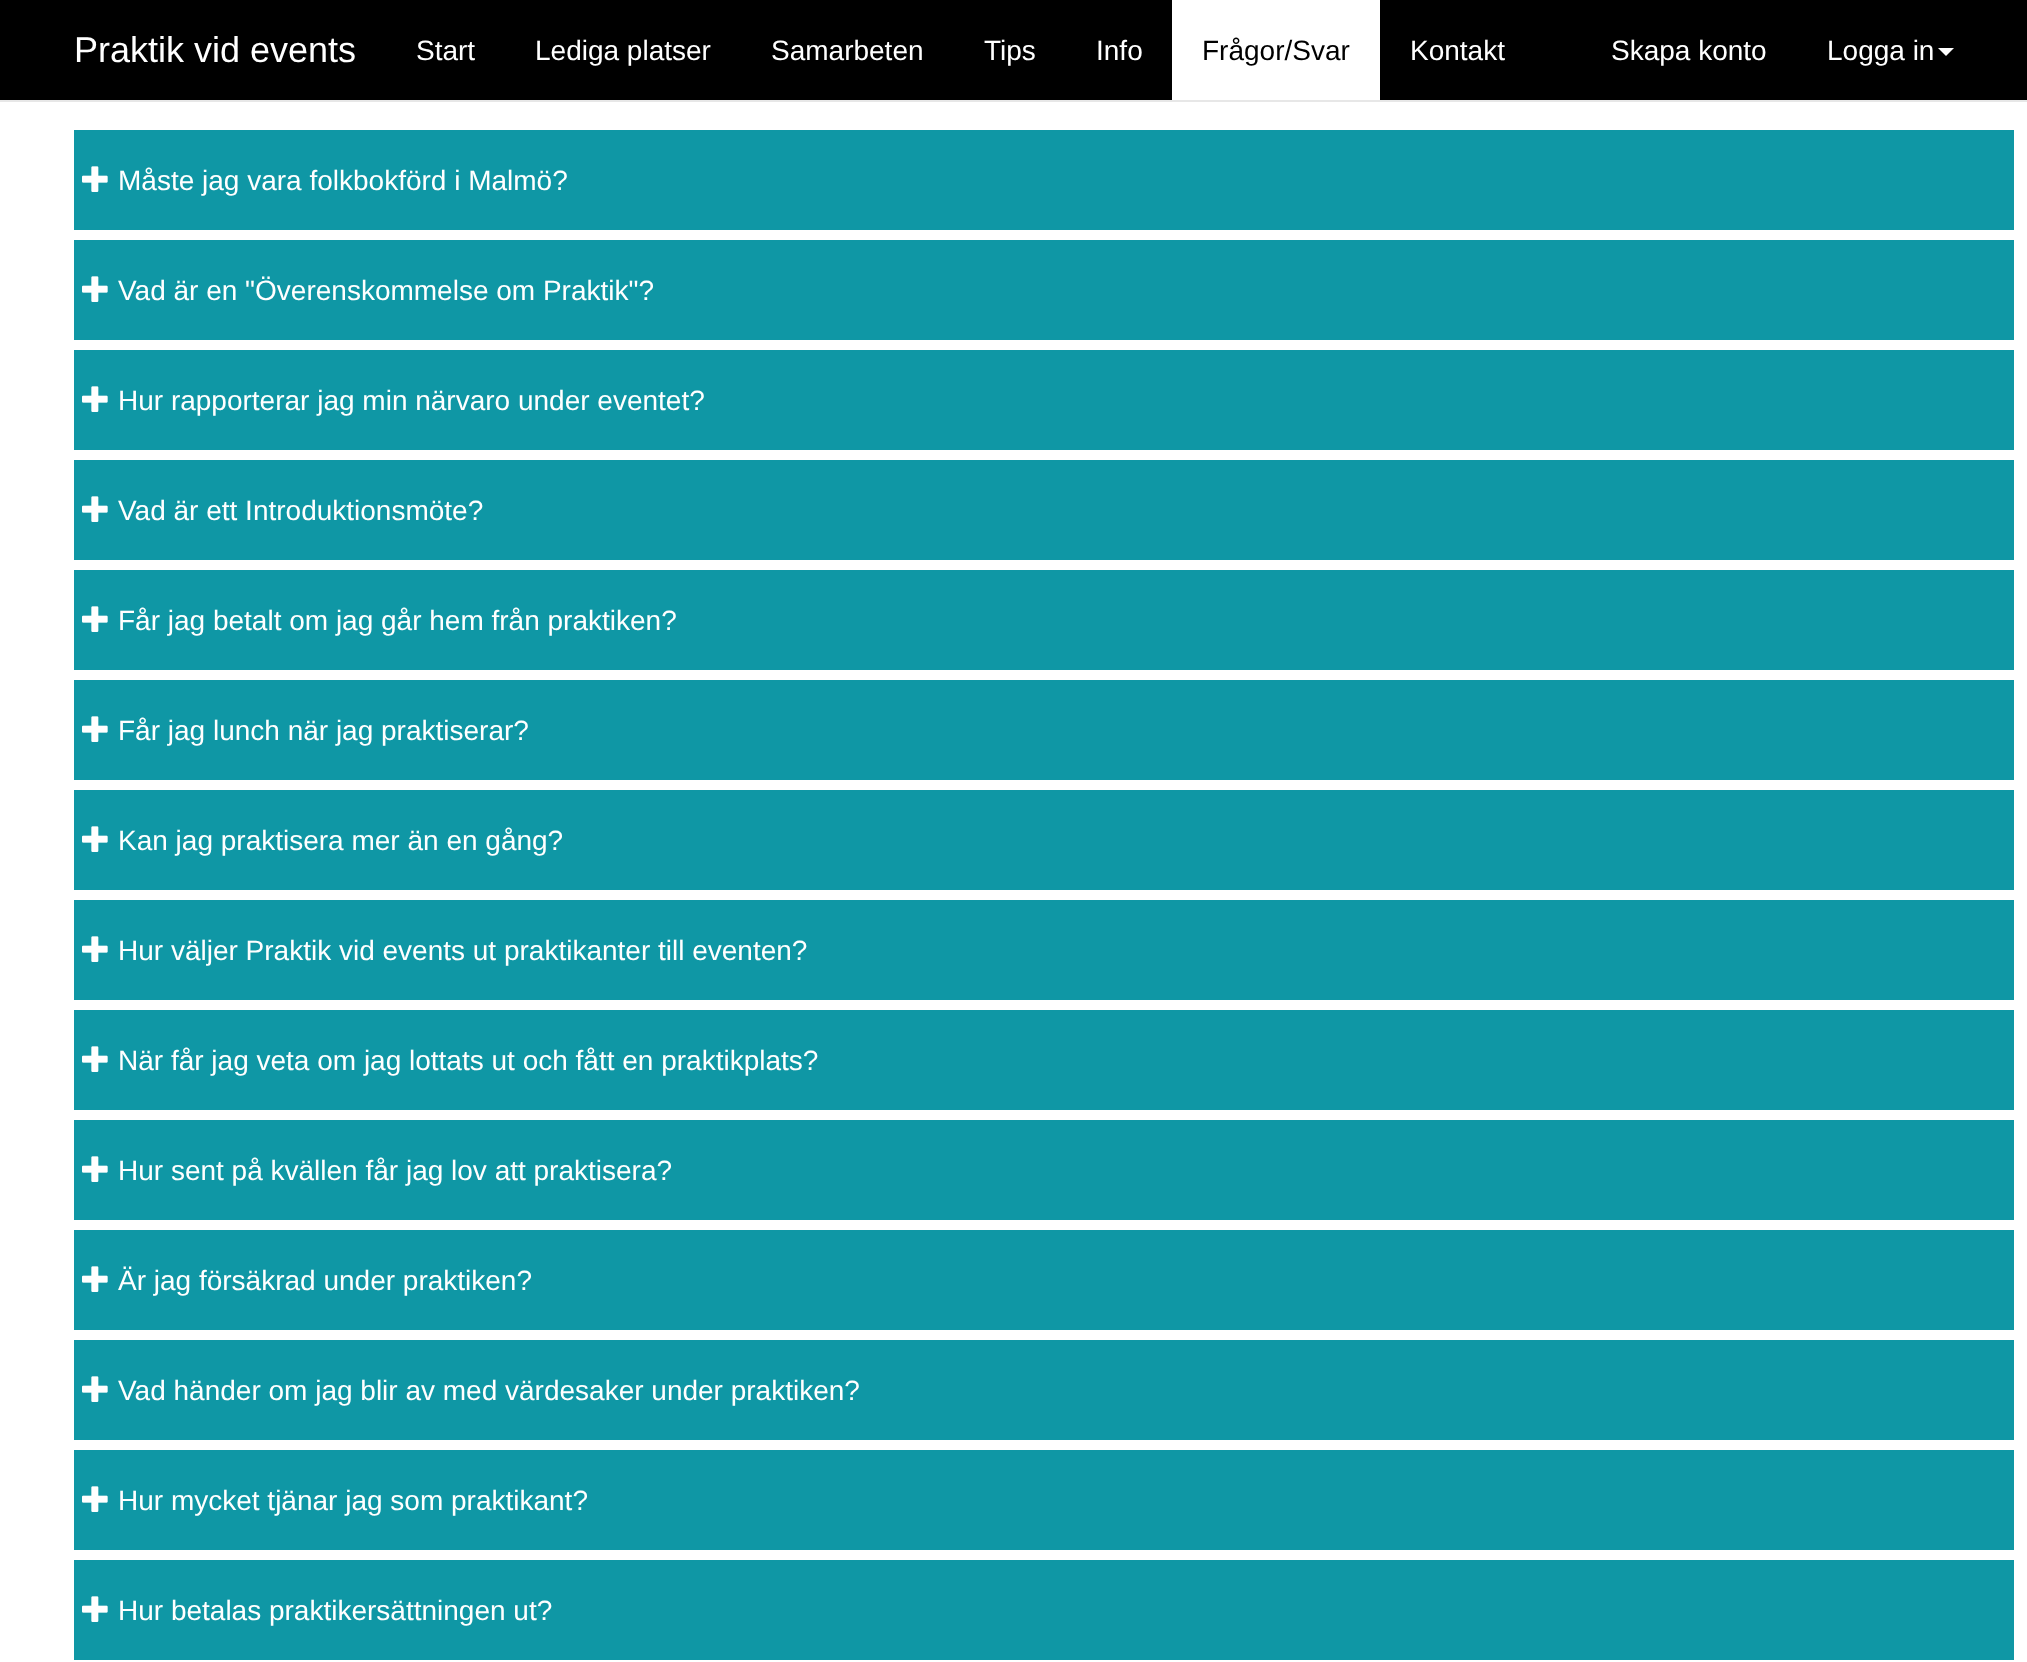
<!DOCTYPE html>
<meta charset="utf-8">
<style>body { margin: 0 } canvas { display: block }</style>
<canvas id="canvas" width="2027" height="1662"></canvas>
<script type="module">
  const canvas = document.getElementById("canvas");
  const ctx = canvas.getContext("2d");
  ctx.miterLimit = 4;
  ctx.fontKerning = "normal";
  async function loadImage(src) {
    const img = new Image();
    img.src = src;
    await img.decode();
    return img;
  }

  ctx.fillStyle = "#ffffff";
  ctx.fillRect(0, 0, 2027, 1662);
  ctx.fillStyle = "#000000";
  ctx.fillRect(0, 0, 2027, 100);
  ctx.fillStyle = "#e7e7e7";
  ctx.fillRect(0, 100, 2027, 2);
  ctx.font = "36px Liberation Sans";
  ctx.fillStyle = "#ffffff";
  ctx.fillText("Praktik vid events", 74, 62);
  ctx.font = "28px Liberation Sans";
  ctx.fillText("Start", 416, 60);
  ctx.fillText("Lediga platser", 535, 60);
  ctx.fillText("Samarbeten", 771, 60);
  ctx.fillText("Tips", 984, 60);
  ctx.fillText("Info", 1096, 60);
  ctx.fillRect(1172, 0, 208, 100);
  ctx.fillStyle = "#000000";
  ctx.fillText("Frågor/Svar", 1202, 60);
  ctx.fillStyle = "#ffffff";
  ctx.fillText("Kontakt", 1410, 60);
  ctx.fillText("Skapa konto", 1611, 60);
  ctx.fillText("Logga in", 1827, 60);
  ctx.beginPath();
  ctx.moveTo(1938, 48);
  ctx.lineTo(1954, 48);
  ctx.lineTo(1946, 56);
  ctx.closePath();
  ctx.fill();
  ctx.fillStyle = "#0f97a5";
  ctx.fillRect(74, 130, 1940, 100);
  ctx.drawImage(await loadImage("img1.png"), 82, 166, 26, 26);
  ctx.fillStyle = "#ffffff";
  ctx.fillText("Måste jag vara folkbokförd i Malmö?", 118, 190);
  ctx.fillStyle = "#0f97a5";
  ctx.fillRect(74, 240, 1940, 100);
  ctx.drawImage(await loadImage("img1.png"), 82, 276, 26, 26);
  ctx.fillStyle = "#ffffff";
  ctx.fillText("Vad är en \"Överenskommelse om Praktik\"?", 118, 300);
  ctx.fillStyle = "#0f97a5";
  ctx.fillRect(74, 350, 1940, 100);
  ctx.drawImage(await loadImage("img1.png"), 82, 386, 26, 26);
  ctx.fillStyle = "#ffffff";
  ctx.fillText("Hur rapporterar jag min närvaro under eventet?", 118, 410);
  ctx.fillStyle = "#0f97a5";
  ctx.fillRect(74, 460, 1940, 100);
  ctx.drawImage(await loadImage("img1.png"), 82, 496, 26, 26);
  ctx.fillStyle = "#ffffff";
  ctx.fillText("Vad är ett Introduktionsmöte?", 118, 520);
  ctx.fillStyle = "#0f97a5";
  ctx.fillRect(74, 570, 1940, 100);
  ctx.drawImage(await loadImage("img1.png"), 82, 606, 26, 26);
  ctx.fillStyle = "#ffffff";
  ctx.fillText("Får jag betalt om jag går hem från praktiken?", 118, 630);
  ctx.fillStyle = "#0f97a5";
  ctx.fillRect(74, 680, 1940, 100);
  ctx.drawImage(await loadImage("img1.png"), 82, 716, 26, 26);
  ctx.fillStyle = "#ffffff";
  ctx.fillText("Får jag lunch när jag praktiserar?", 118, 740);
  ctx.fillStyle = "#0f97a5";
  ctx.fillRect(74, 790, 1940, 100);
  ctx.drawImage(await loadImage("img1.png"), 82, 826, 26, 26);
  ctx.fillStyle = "#ffffff";
  ctx.fillText("Kan jag praktisera mer än en gång?", 118, 850);
  ctx.fillStyle = "#0f97a5";
  ctx.fillRect(74, 900, 1940, 100);
  ctx.drawImage(await loadImage("img1.png"), 82, 936, 26, 26);
  ctx.fillStyle = "#ffffff";
  ctx.fillText("Hur väljer Praktik vid events ut praktikanter till eventen?", 118, 960);
  ctx.fillStyle = "#0f97a5";
  ctx.fillRect(74, 1010, 1940, 100);
  ctx.drawImage(await loadImage("img1.png"), 82, 1046, 26, 26);
  ctx.fillStyle = "#ffffff";
  ctx.fillText("När får jag veta om jag lottats ut och fått en praktikplats?", 118, 1070);
  ctx.fillStyle = "#0f97a5";
  ctx.fillRect(74, 1120, 1940, 100);
  ctx.drawImage(await loadImage("img1.png"), 82, 1156, 26, 26);
  ctx.fillStyle = "#ffffff";
  ctx.fillText("Hur sent på kvällen får jag lov att praktisera?", 118, 1180);
  ctx.fillStyle = "#0f97a5";
  ctx.fillRect(74, 1230, 1940, 100);
  ctx.drawImage(await loadImage("img1.png"), 82, 1266, 26, 26);
  ctx.fillStyle = "#ffffff";
  ctx.fillText("Är jag försäkrad under praktiken?", 118, 1290);
  ctx.fillStyle = "#0f97a5";
  ctx.fillRect(74, 1340, 1940, 100);
  ctx.drawImage(await loadImage("img1.png"), 82, 1376, 26, 26);
  ctx.fillStyle = "#ffffff";
  ctx.fillText("Vad händer om jag blir av med värdesaker under praktiken?", 118, 1400);
  ctx.fillStyle = "#0f97a5";
  ctx.fillRect(74, 1450, 1940, 100);
  ctx.drawImage(await loadImage("img1.png"), 82, 1486, 26, 26);
  ctx.fillStyle = "#ffffff";
  ctx.fillText("Hur mycket tjänar jag som praktikant?", 118, 1510);
  ctx.fillStyle = "#0f97a5";
  ctx.fillRect(74, 1560, 1940, 100);
  ctx.drawImage(await loadImage("img1.png"), 82, 1596, 26, 26);
  ctx.fillStyle = "#ffffff";
  ctx.fillText("Hur betalas praktikersättningen ut?", 118, 1620);
</script>
